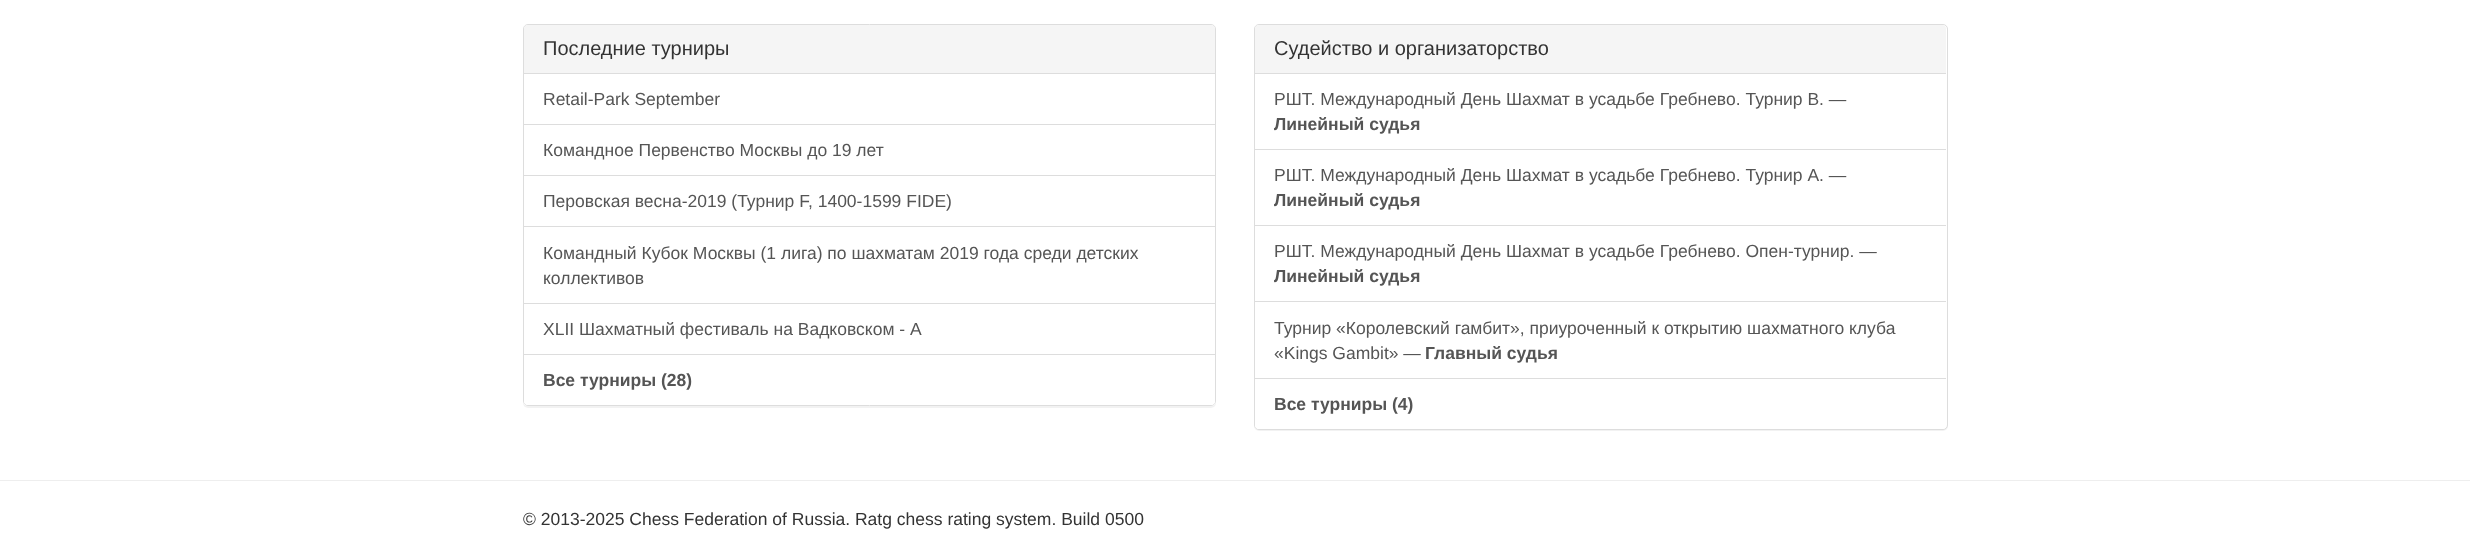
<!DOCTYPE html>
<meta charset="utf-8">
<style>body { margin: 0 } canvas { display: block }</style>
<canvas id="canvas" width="2470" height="543"></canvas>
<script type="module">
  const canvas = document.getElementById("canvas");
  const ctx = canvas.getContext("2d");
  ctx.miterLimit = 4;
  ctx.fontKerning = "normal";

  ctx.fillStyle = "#ffffff";
  ctx.fillRect(0, 0, 2470, 543);
  ctx.save();
  ctx.beginPath();
  ctx.moveTo(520, 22);
  ctx.lineTo(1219, 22);
  ctx.lineTo(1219, 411);
  ctx.lineTo(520, 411);
  ctx.closePath();
  ctx.moveTo(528, 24);
  ctx.lineTo(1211, 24);
  ctx.bezierCurveTo(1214, 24, 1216, 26, 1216, 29);
  ctx.lineTo(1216, 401);
  ctx.bezierCurveTo(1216, 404, 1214, 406, 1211, 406);
  ctx.lineTo(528, 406);
  ctx.bezierCurveTo(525, 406, 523, 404, 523, 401);
  ctx.lineTo(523, 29);
  ctx.bezierCurveTo(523, 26, 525, 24, 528, 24);
  ctx.closePath();
  ctx.clip("evenodd");
  ctx.fillStyle = "rgba(0, 0, 0, 0.05)";
  ctx.filter = "blur(0.5px)";
  ctx.beginPath();
  ctx.roundRect(523, 25, 693, 383, 5);
  ctx.fill();
  ctx.filter = "none";
  ctx.restore();
  ctx.beginPath();
  ctx.roundRect(523.5, 24.5, 692, 381, 4.5);
  ctx.strokeStyle = "#dddddd";
  ctx.stroke();
  ctx.fillStyle = "#f5f5f5";
  ctx.beginPath();
  ctx.roundRect(524, 25, 691, 49, [4, 4, 0, 0]);
  ctx.fill();
  ctx.fillStyle = "#dddddd";
  ctx.fillRect(524, 73, 691, 1);
  ctx.font = "20px Liberation Sans";
  ctx.fillStyle = "#333333";
  ctx.fillText("Последние турниры", 543, 55);
  ctx.fillStyle = "#dddddd";
  ctx.fillRect(524, 124, 691, 1);
  ctx.font = "17.5px Liberation Sans";
  ctx.fillStyle = "#555555";
  ctx.fillText("Retail-Park September", 543, 105);
  ctx.fillStyle = "#dddddd";
  ctx.fillRect(524, 175, 691, 1);
  ctx.fillStyle = "#555555";
  ctx.fillText("Командное Первенство Москвы до 19 лет", 543, 156);
  ctx.fillStyle = "#dddddd";
  ctx.fillRect(524, 226, 691, 1);
  ctx.fillStyle = "#555555";
  ctx.fillText("Перовская весна-2019 (Турнир F, 1400-1599 FIDE)", 543, 207);
  ctx.fillStyle = "#dddddd";
  ctx.fillRect(524, 303, 691, 1);
  ctx.fillStyle = "#555555";
  ctx.fillText("Командный Кубок Москвы (1 лига) по шахматам 2019 года среди детских", 543, 259);
  ctx.fillText("коллективов", 543, 284);
  ctx.fillText("XLII Шахматный фестиваль на Вадковском - A", 543, 335);
  ctx.fillStyle = "#ffffff";
  ctx.beginPath();
  ctx.roundRect(524, 354, 691, 51, [0, 0, 4, 4]);
  ctx.fill();
  ctx.fillStyle = "#dddddd";
  ctx.fillRect(524, 354, 691, 1);
  ctx.font = "bold 17.5px Liberation Sans";
  ctx.fillStyle = "#555555";
  ctx.fillText("Все турниры (28)", 543, 386);
  ctx.fillStyle = "rgba(0, 0, 0, 0.05)";
  ctx.filter = "blur(0.5px)";
  ctx.beginPath();
  ctx.roundRect(1254, 25, 694, 406, 5);
  ctx.fill();
  ctx.filter = "none";
  ctx.fillStyle = "#ffffff";
  ctx.beginPath();
  ctx.roundRect(1254.5, 24.5, 693, 405, 4.5);
  ctx.fill();
  ctx.stroke();
  ctx.fillStyle = "#f5f5f5";
  ctx.beginPath();
  ctx.roundRect(1255, 25, 691, 49, [4, 4, 0, 0]);
  ctx.fill();
  ctx.fillStyle = "#dddddd";
  ctx.fillRect(1255, 73, 691, 1);
  ctx.font = "20px Liberation Sans";
  ctx.fillStyle = "#333333";
  ctx.fillText("Судейство и организаторство", 1274, 55);
  ctx.fillStyle = "#dddddd";
  ctx.fillRect(1255, 149, 691, 1);
  ctx.font = "17.5px Liberation Sans";
  ctx.fillStyle = "#555555";
  ctx.fillText("РШТ. Международный День Шахмат в усадьбе Гребнево. Турнир B. —", 1274, 105);
  ctx.font = "bold 17.5px Liberation Sans";
  ctx.fillText("Линейный судья", 1274, 130);
  ctx.fillStyle = "#dddddd";
  ctx.fillRect(1255, 225, 691, 1);
  ctx.font = "17.5px Liberation Sans";
  ctx.fillStyle = "#555555";
  ctx.fillText("РШТ. Международный День Шахмат в усадьбе Гребнево. Турнир A. —", 1274, 181);
  ctx.font = "bold 17.5px Liberation Sans";
  ctx.fillText("Линейный судья", 1274, 206);
  ctx.fillStyle = "#dddddd";
  ctx.fillRect(1255, 301, 691, 1);
  ctx.font = "17.5px Liberation Sans";
  ctx.fillStyle = "#555555";
  ctx.fillText("РШТ. Международный День Шахмат в усадьбе Гребнево. Опен-турнир. —", 1274, 257);
  ctx.font = "bold 17.5px Liberation Sans";
  ctx.fillText("Линейный судья", 1274, 282);
  ctx.font = "17.5px Liberation Sans";
  ctx.fillText("Турнир «Королевский гамбит», приуроченный к открытию шахматного клуба", 1274, 334);
  ctx.fillText("«Kings Gambit» —", 1274, 359);
  ctx.font = "bold 17.5px Liberation Sans";
  ctx.fillText("Главный судья", 1425, 359);
  ctx.fillStyle = "#ffffff";
  ctx.beginPath();
  ctx.roundRect(1255, 378, 691, 51, [0, 0, 4, 4]);
  ctx.fill();
  ctx.fillStyle = "#dddddd";
  ctx.fillRect(1255, 378, 691, 1);
  ctx.fillStyle = "#555555";
  ctx.fillText("Все турниры (4)", 1274, 410);
  ctx.fillStyle = "#eeeeee";
  ctx.fillRect(0, 480, 2470, 1);
  ctx.font = "17.5px Liberation Sans";
  ctx.fillStyle = "#333333";
  ctx.fillText("© 2013-2025 Chess Federation of Russia. Ratg chess rating system. Build 0500", 523, 525);
</script>
